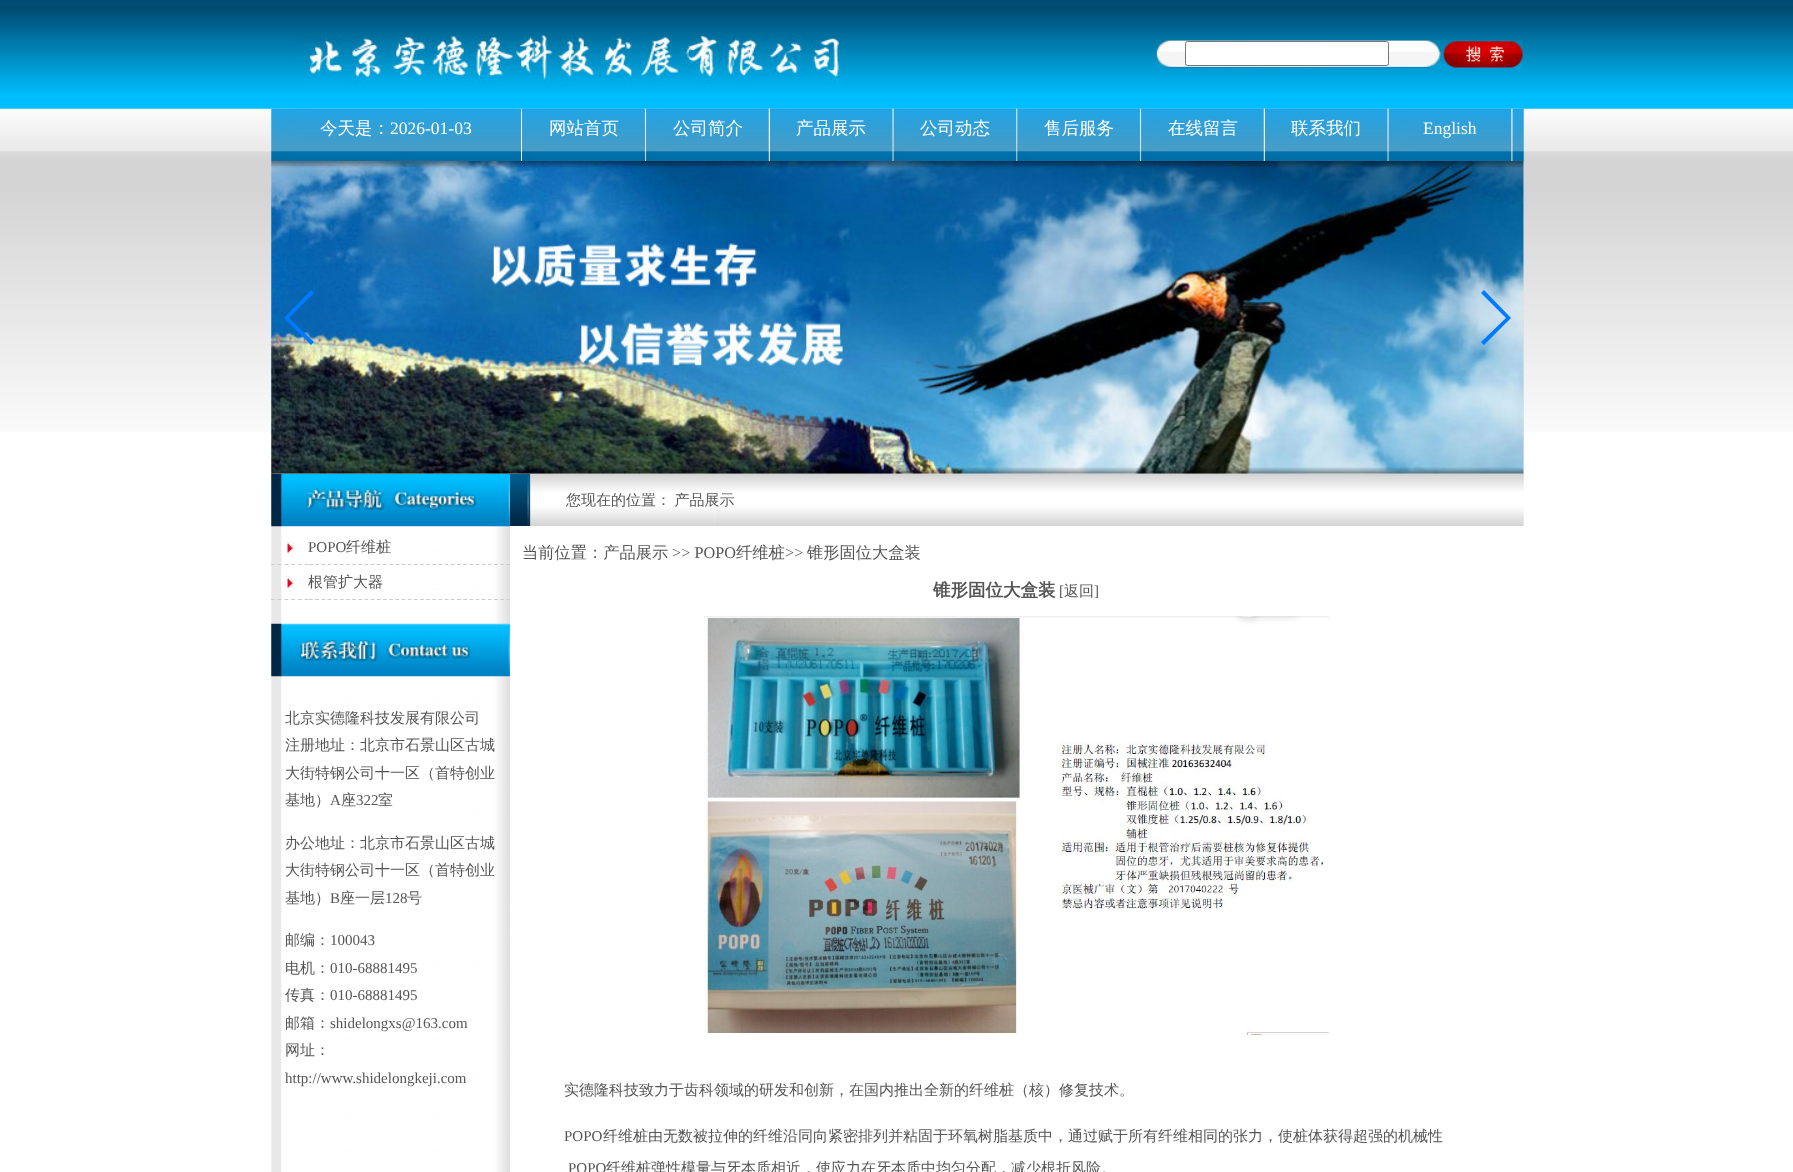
<!DOCTYPE html>
<meta charset="utf-8">
<style>body { margin: 0 } canvas { display: block }</style>
<canvas id="canvas" width="1793" height="1172"></canvas>
<script type="module">
  const canvas = document.getElementById("canvas");
  const ctx = canvas.getContext("2d");
  ctx.miterLimit = 4;
  ctx.fontKerning = "normal";
  async function loadImage(src) {
    const img = new Image();
    img.src = src;
    await img.decode();
    return img;
  }

  ctx.fillStyle = "#ffffff";
  ctx.fillRect(0, 0, 1793, 1172);
  ctx.drawImage(await loadImage("img1.png"), 0, 0, 1793, 432);
  ctx.drawImage(await loadImage("img2.png"), 301, 34, 541, 51);
  ctx.drawImage(await loadImage("img3.png"), 1155, 40, 289, 29);
  ctx.beginPath();
  ctx.roundRect(1185.5, 41.5, 203, 24, 2);
  ctx.fill();
  ctx.strokeStyle = "#767676";
  ctx.stroke();
  ctx.drawImage(await loadImage("img4.png"), 1443, 40, 80, 29);
  ctx.drawImage(await loadImage("img5.png"), 271, 108, 1253, 54);
  ctx.font = "500 17.5px WenQuanYi Zen Hei";
  ctx.fillText("今天是：", 320, 134);
  ctx.font = "17.5px Liberation Serif";
  ctx.fillText("2026-01-03", 390, 134);
  ctx.fillRect(521, 109, 1, 52);
  ctx.drawImage(await loadImage("img6.png"), 522, 108, 125, 53);
  ctx.font = "500 17.5px WenQuanYi Zen Hei";
  ctx.fillText("网站首页", 549, 134);
  ctx.drawImage(await loadImage("img7.png"), 646, 108, 124, 53);
  ctx.fillText("公司简介", 673, 134);
  ctx.drawImage(await loadImage("img8.png"), 770, 108, 124, 53);
  ctx.fillText("产品展示", 796, 134);
  ctx.drawImage(await loadImage("img9.png"), 893, 108, 125, 53);
  ctx.fillText("公司动态", 920, 134);
  ctx.drawImage(await loadImage("img10.png"), 1017, 108, 125, 53);
  ctx.fillText("售后服务", 1044, 134);
  ctx.drawImage(await loadImage("img7.png"), 1141, 108, 124, 53);
  ctx.fillText("在线留言", 1168, 134);
  ctx.drawImage(await loadImage("img11.png"), 1265, 108, 124, 53);
  ctx.fillText("联系我们", 1291, 134);
  ctx.drawImage(await loadImage("img9.png"), 1388, 108, 125, 53);
  ctx.font = "17.5px Liberation Serif";
  ctx.fillText("English", 1423, 134);
  ctx.drawImage(await loadImage("img14.png"), 271, 473, 239, 699);
  ctx.drawImage(await loadImage("img15.png"), 271, 473, 239, 54);
  ctx.drawImage(await loadImage("img18.png"), 510, 473, 1014, 53);
  ctx.drawImage(await loadImage("img12.png"), 271, 161, 1253, 313);
  ctx.drawImage(await loadImage("img13.png"), 1523, 161, 1, 313);
  ctx.fillStyle = "#007aff";
  ctx.beginPath();
  ctx.moveTo(284, 318);
  ctx.lineTo(311, 290);
  ctx.lineTo(314, 293);
  ctx.lineTo(289, 318);
  ctx.lineTo(314, 342);
  ctx.lineTo(311, 345);
  ctx.closePath();
  ctx.fill();
  ctx.beginPath();
  ctx.moveTo(1511, 318);
  ctx.lineTo(1484, 345);
  ctx.lineTo(1481, 342);
  ctx.lineTo(1506, 318);
  ctx.lineTo(1481, 293);
  ctx.lineTo(1484, 290);
  ctx.closePath();
  ctx.fill();
  ctx.beginPath();
  ctx.moveTo(271, 564.5);
  ctx.lineTo(309, 564.5);
  ctx.strokeStyle = "#cccccc";
  ctx.lineWidth = 1.2;
  ctx.setLineDash([3.75, 3]);
  ctx.stroke();
  ctx.drawImage(await loadImage("img16.png"), 283, 541, 12, 13);
  ctx.beginPath();
  ctx.moveTo(309, 564.5);
  ctx.lineTo(510, 564.5);
  ctx.setLineDash([3.75, 2.42]);
  ctx.stroke();
  ctx.font = "15px Liberation Serif";
  ctx.fillStyle = "#555555";
  ctx.fillText("POPO", 308, 552);
  ctx.font = "500 15px WenQuanYi Zen Hei";
  ctx.fillText("纤维桩", 346, 552);
  ctx.beginPath();
  ctx.moveTo(271, 599.5);
  ctx.lineTo(309, 599.5);
  ctx.setLineDash([3.75, 3]);
  ctx.stroke();
  ctx.drawImage(await loadImage("img16.png"), 283, 576, 12, 13);
  ctx.beginPath();
  ctx.moveTo(309, 599.5);
  ctx.lineTo(510, 599.5);
  ctx.setLineDash([3.75, 2.42]);
  ctx.stroke();
  ctx.fillText("根管扩大器", 308, 587);
  ctx.drawImage(await loadImage("img17.png"), 271, 623, 239, 54);
  ctx.fillText("北京实德隆科技发展有限公司", 285, 723);
  ctx.fillText("注册地址：北京市石景山区古城", 285, 750);
  ctx.fillText("大街特钢公司十一区（首特创业", 285, 778);
  ctx.fillText("基地）", 285, 805);
  ctx.font = "15px Liberation Serif";
  ctx.fillText("A", 330, 805);
  ctx.font = "500 15px WenQuanYi Zen Hei";
  ctx.fillText("座", 341, 805);
  ctx.font = "15px Liberation Serif";
  ctx.fillText("322", 356, 805);
  ctx.font = "500 15px WenQuanYi Zen Hei";
  ctx.fillText("室", 378, 805);
  ctx.fillText("办公地址：北京市石景山区古城", 285, 848);
  ctx.fillText("大街特钢公司十一区（首特创业", 285, 875);
  ctx.fillText("基地）", 285, 903);
  ctx.font = "15px Liberation Serif";
  ctx.fillText("B", 330, 903);
  ctx.font = "500 15px WenQuanYi Zen Hei";
  ctx.fillText("座一层", 340, 903);
  ctx.font = "15px Liberation Serif";
  ctx.fillText("128", 385, 903);
  ctx.font = "500 15px WenQuanYi Zen Hei";
  ctx.fillText("号", 407, 903);
  ctx.fillText("邮编：", 285, 945);
  ctx.font = "15px Liberation Serif";
  ctx.fillText("100043", 330, 945);
  ctx.font = "500 15px WenQuanYi Zen Hei";
  ctx.fillText("电机：", 285, 973);
  ctx.font = "15px Liberation Serif";
  ctx.fillText("010-68881495", 330, 973);
  ctx.font = "500 15px WenQuanYi Zen Hei";
  ctx.fillText("传真：", 285, 1000);
  ctx.font = "15px Liberation Serif";
  ctx.fillText("010-68881495", 330, 1000);
  ctx.font = "500 15px WenQuanYi Zen Hei";
  ctx.fillText("邮箱：", 285, 1028);
  ctx.font = "15px Liberation Serif";
  ctx.fillText("shidelongxs@163.com", 330, 1028);
  ctx.font = "500 15px WenQuanYi Zen Hei";
  ctx.fillText("网址：", 285, 1055);
  ctx.font = "15px Liberation Serif";
  ctx.fillText("http://www.shidelongkeji.com", 285, 1083);
  ctx.wordSpacing = "-1px";
  ctx.font = "500 15px WenQuanYi Zen Hei";
  ctx.fillText("您现在的位置： 产品展示", 566, 505);
  ctx.wordSpacing = "0px";
  ctx.font = "500 16.25px WenQuanYi Zen Hei";
  ctx.fillText("当前位置：产品展示", 522, 558);
  ctx.font = "16.25px Liberation Serif";
  ctx.fillText(">> POPO", 672, 558);
  ctx.font = "500 16.25px WenQuanYi Zen Hei";
  ctx.fillText("纤维桩", 736, 558);
  ctx.font = "16.25px Liberation Serif";
  ctx.fillText(">>", 785, 558);
  ctx.font = "500 16.25px WenQuanYi Zen Hei";
  ctx.fillText("锥形固位大盒装", 807, 558);
  ctx.font = "bold 17.5px WenQuanYi Zen Hei";
  ctx.fillText("锥形固位大盒装", 933, 596);
  ctx.font = "15px Liberation Serif";
  ctx.fillText("[", 1059, 596);
  ctx.font = "500 15px WenQuanYi Zen Hei";
  ctx.fillText("返回", 1064, 596);
  ctx.font = "15px Liberation Serif";
  ctx.fillText("]", 1094, 596);
  ctx.drawImage(await loadImage("img19.png"), 704, 616, 625, 419);
  ctx.font = "500 15px WenQuanYi Zen Hei";
  ctx.fillText("实德隆科技致力于齿科领域的研发和创新，在国内推出全新的纤维桩（核）修复技术。", 564, 1095);
  ctx.font = "15px Liberation Serif";
  ctx.fillText("POPO", 564, 1141);
  ctx.font = "500 15px WenQuanYi Zen Hei";
  ctx.fillText("纤维桩由无数被拉伸的纤维沿同向紧密排列并粘固于环氧树脂基质中，通过赋于所有纤维相同的张力，使桩体获得超强的机械性", 603, 1141);
  ctx.font = "15px Liberation Serif";
  ctx.fillText("POPO", 568, 1173);
  ctx.font = "500 15px WenQuanYi Zen Hei";
  ctx.fillText("纤维桩弹性模量与牙本质相近，使应力在牙本质中均匀分配，减少根折风险。", 606, 1173);
</script>
